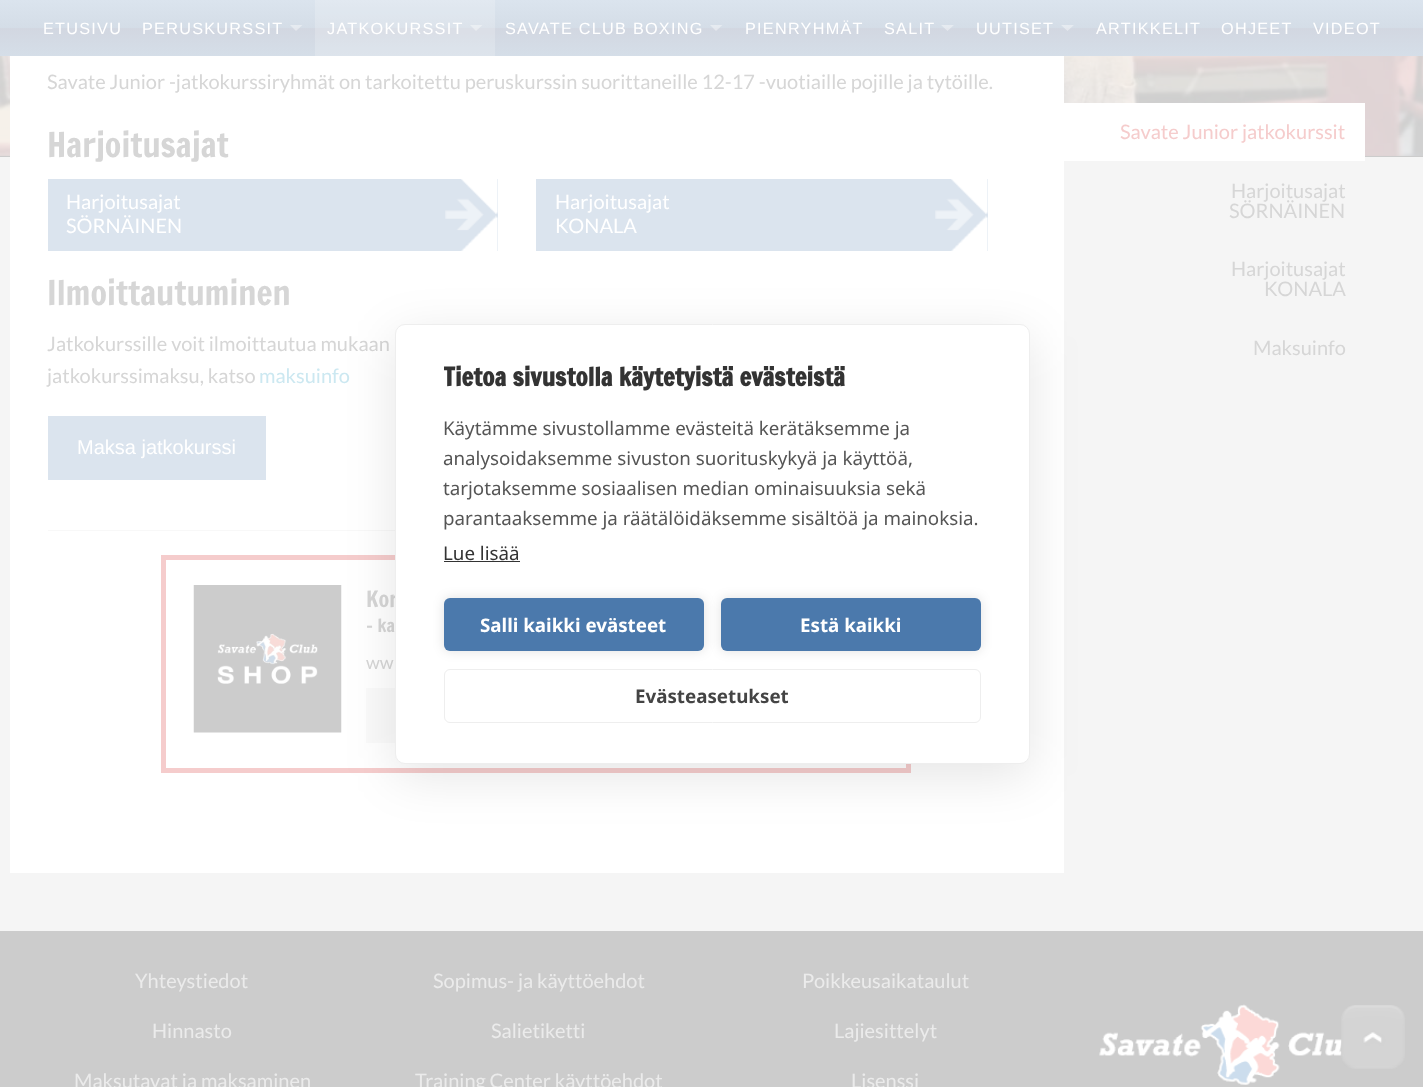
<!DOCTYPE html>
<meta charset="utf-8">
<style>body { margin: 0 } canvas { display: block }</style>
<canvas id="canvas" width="1423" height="1087"></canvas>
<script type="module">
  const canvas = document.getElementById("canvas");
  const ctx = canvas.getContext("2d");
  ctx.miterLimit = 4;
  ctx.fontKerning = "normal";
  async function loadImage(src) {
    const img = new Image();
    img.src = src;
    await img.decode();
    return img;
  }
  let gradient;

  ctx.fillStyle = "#cccccc";
  ctx.fillRect(0, 0, 1423, 1087);
  gradient = ctx.createLinearGradient(712, 0, 712, 56);
  gradient.addColorStop(0, "#dbe4ee");
  gradient.addColorStop(0.5, "#d4dde7");
  gradient.addColorStop(0.51, "#d2d7e1");
  gradient.addColorStop(1, "#d5dee8");
  gradient.addColorStop(1, "#d2d7e1");
  ctx.fillStyle = gradient;
  ctx.fillRect(0, 0, 1423, 56);
  ctx.letterSpacing = "1.25px";
  ctx.font = "16.25px Liberation Sans";
  ctx.fillStyle = "#ffffff";
  ctx.fillText("ETUSIVU", 43, 34);
  ctx.fillText("PERUSKURSSIT", 142, 34);
  ctx.fillStyle = "rgba(255, 255, 255, 0.4)";
  ctx.beginPath();
  ctx.moveTo(290, 25);
  ctx.lineTo(302.5, 25);
  ctx.lineTo(296, 31);
  ctx.closePath();
  ctx.fill();
  ctx.fillStyle = "rgba(255, 255, 255, 0.2)";
  ctx.fillRect(315, 0, 180, 56);
  ctx.fillStyle = "#ffffff";
  ctx.fillText("JATKOKURSSIT", 327, 34);
  ctx.fillStyle = "rgba(255, 255, 255, 0.4)";
  ctx.beginPath();
  ctx.moveTo(470, 25);
  ctx.lineTo(482.5, 25);
  ctx.lineTo(476, 31);
  ctx.closePath();
  ctx.fill();
  ctx.fillStyle = "#ffffff";
  ctx.fillText("SAVATE CLUB BOXING", 505, 34);
  ctx.fillStyle = "rgba(255, 255, 255, 0.4)";
  ctx.beginPath();
  ctx.moveTo(710, 25);
  ctx.lineTo(722.5, 25);
  ctx.lineTo(716, 31);
  ctx.closePath();
  ctx.fill();
  ctx.fillStyle = "#ffffff";
  ctx.fillText("PIENRYHMÄT", 745, 34);
  ctx.fillText("SALIT", 884, 34);
  ctx.fillStyle = "rgba(255, 255, 255, 0.4)";
  ctx.beginPath();
  ctx.moveTo(941, 25);
  ctx.lineTo(954, 25);
  ctx.lineTo(947.5, 31);
  ctx.closePath();
  ctx.fill();
  ctx.fillStyle = "#ffffff";
  ctx.fillText("UUTISET", 976, 34);
  ctx.fillStyle = "rgba(255, 255, 255, 0.4)";
  ctx.beginPath();
  ctx.moveTo(1061, 25);
  ctx.lineTo(1074, 25);
  ctx.lineTo(1067.5, 31);
  ctx.closePath();
  ctx.fill();
  ctx.fillStyle = "#ffffff";
  ctx.fillText("ARTIKKELIT", 1096, 34);
  ctx.fillText("OHJEET", 1221, 34);
  ctx.fillText("VIDEOT", 1313, 34);
  ctx.fillStyle = "#f5f5f5";
  ctx.fillRect(0, 157, 1423, 774);
  ctx.drawImage(await loadImage("img1.png"), 0, 56, 1423, 100);
  ctx.fillStyle = "#ffffff";
  ctx.fillRect(10, 56, 1054, 817);
  ctx.letterSpacing = "0px";
  ctx.font = "20px Lato";
  ctx.fillStyle = "#d6d6d6";
  ctx.fillText("Savate Junior -jatkokurssiryhmät on tarkoitettu peruskurssin suorittaneille 12-17 -vuotiaille pojille ja tytöille.", 47, 89);
  ctx.font = "33.75px Francois One";
  ctx.fillText("Harjoitusajat", 47, 157);
  ctx.fillStyle = "#dbe4ee";
  ctx.fillRect(48, 179, 450, 72);
  ctx.drawImage(await loadImage("img2.png"), 445, 179, 53, 72);
  ctx.font = "20px Lato";
  ctx.fillStyle = "#ffffff";
  ctx.fillText("Harjoitusajat", 66, 209);
  ctx.fillText("SÖRNÄINEN", 66, 233);
  ctx.fillStyle = "#dbe4ee";
  ctx.fillRect(536, 179, 452, 72);
  ctx.drawImage(await loadImage("img2.png"), 935, 179, 53, 72);
  ctx.fillStyle = "#ffffff";
  ctx.fillText("Harjoitusajat", 555, 209);
  ctx.fillText("KONALA", 555, 233);
  ctx.font = "33.75px Francois One";
  ctx.fillStyle = "#d6d6d6";
  ctx.fillText("Ilmoittautuminen", 47, 305);
  ctx.font = "20px Lato";
  ctx.fillText("Jatkokurssille voit ilmoittautua mukaan", 47, 351);
  ctx.fillText("jatkokurssimaksu, katso", 47, 383);
  ctx.fillStyle = "#cce8f1";
  ctx.fillText("maksuinfo", 259, 383);
  ctx.fillStyle = "#dbe4ee";
  ctx.fillRect(48, 416, 218, 64);
  ctx.font = "20px Liberation Sans";
  ctx.fillStyle = "#ffffff";
  ctx.fillText("Maksa jatkokurssi", 77, 454);
  ctx.fillStyle = "#f8f8f8";
  ctx.fillRect(48, 530, 347, 1);
  ctx.strokeStyle = "#f5cccc";
  ctx.lineWidth = 5;
  ctx.strokeRect(163.5, 557.5, 745, 213);
  ctx.drawImage(await loadImage("img3.png"), 193, 585, 149, 148);
  ctx.font = "22px Francois One";
  ctx.fillStyle = "#d6d6d6";
  ctx.fillText("Kor", 366, 607);
  ctx.font = "18px Francois One";
  ctx.fillText("- ka", 366, 632);
  ctx.font = "18px Lato";
  ctx.fillText("ww", 366, 669);
  ctx.fillStyle = "#fafafa";
  ctx.fillRect(366, 688, 29, 55);
  ctx.fillStyle = "#ffffff";
  ctx.fillRect(1064, 103, 301, 58);
  ctx.font = "20px Lato";
  ctx.fillStyle = "#f5cccc";
  ctx.fillText("Savate Junior jatkokurssit", 1120, 139);
  ctx.fillStyle = "#d6d6d6";
  ctx.fillText("Harjoitusajat", 1231, 198);
  ctx.fillText("SÖRNÄINEN", 1229, 218);
  ctx.fillText("Harjoitusajat", 1231, 276);
  ctx.fillText("KONALA", 1264, 296);
  ctx.fillText("Maksuinfo", 1253, 355);
  ctx.fillStyle = "rgba(0, 0, 0, 0.1)";
  ctx.filter = "blur(25px)";
  ctx.beginPath();
  ctx.roundRect(395, 336, 635, 440, 10);
  ctx.fill();
  ctx.filter = "none";
  ctx.fillStyle = "#ffffff";
  ctx.beginPath();
  ctx.roundRect(395.5, 324.5, 634, 439, 9.5);
  ctx.fill();
  ctx.strokeStyle = "#eeeeee";
  ctx.lineWidth = 1;
  ctx.stroke();
  ctx.save();
  ctx.beginPath();
  ctx.rect(444, 365, 537, 233);
  ctx.clip();
  ctx.font = "bold 25px Francois One";
  ctx.fillStyle = "#333333";
  ctx.fillText("Tietoa sivustolla käytetyistä evästeistä", 443, 386);
  ctx.restore();
  ctx.font = "18.75px Noto Sans";
  ctx.fillStyle = "#555555";
  ctx.fillText("Käytämme sivustollamme evästeitä kerätäksemme ja", 443, 435);
  ctx.fillText("analysoidaksemme sivuston suorituskykyä ja käyttöä,", 443, 465);
  ctx.fillText("tarjotaksemme sosiaalisen median ominaisuuksia sekä", 443, 495);
  ctx.fillText("parantaaksemme ja räätälöidäksemme sisältöä ja mainoksia.", 443, 525);
  ctx.fillStyle = "#333333";
  ctx.fillText("Lue lisää", 443, 560);
  ctx.fillRect(444, 561, 76, 1);
  ctx.fillStyle = "rgba(0, 0, 0, 0.12)";
  ctx.filter = "blur(6px)";
  ctx.beginPath();
  ctx.roundRect(444, 598, 260, 53, 6);
  ctx.fill();
  ctx.filter = "none";
  ctx.fillStyle = "#4b79ac";
  ctx.beginPath();
  ctx.roundRect(444, 598, 260, 53, 6);
  ctx.fill();
  ctx.font = "bold 18.75px Noto Sans";
  ctx.fillStyle = "#ffffff";
  ctx.fillText("Salli kaikki evästeet", 480, 632);
  ctx.fillStyle = "rgba(0, 0, 0, 0.12)";
  ctx.filter = "blur(6px)";
  ctx.beginPath();
  ctx.roundRect(721, 598, 260, 53, 6);
  ctx.fill();
  ctx.filter = "none";
  ctx.fillStyle = "#4b79ac";
  ctx.beginPath();
  ctx.roundRect(721, 598, 260, 53, 6);
  ctx.fill();
  ctx.fillStyle = "#ffffff";
  ctx.fillText("Estä kaikki", 800, 632);
  ctx.beginPath();
  ctx.roundRect(444.5, 669.5, 536, 53, 5.5);
  ctx.stroke();
  ctx.fillStyle = "#444444";
  ctx.fillText("Evästeasetukset", 635, 703);
  ctx.font = "20px Lato";
  ctx.fillStyle = "#ebebeb";
  ctx.fillText("Yhteystiedot", 135, 988);
  ctx.fillText("Hinnasto", 152, 1038);
  ctx.fillText("Maksutavat ja maksaminen", 74, 1088);
  ctx.fillText("Sopimus- ja käyttöehdot", 433, 988);
  ctx.fillText("Salietiketti", 491, 1038);
  ctx.fillText("Training Center käyttöehdot", 415, 1088);
  ctx.fillText("Poikkeusaikataulut", 802, 988);
  ctx.fillText("Lajiesittelyt", 834, 1038);
  ctx.fillText("Lisenssi", 851, 1088);
  ctx.drawImage(await loadImage("img4.png"), 1099, 1004, 245, 81);
  ctx.drawImage(await loadImage("img5.png"), 1341, 1005, 65, 64);
</script>
